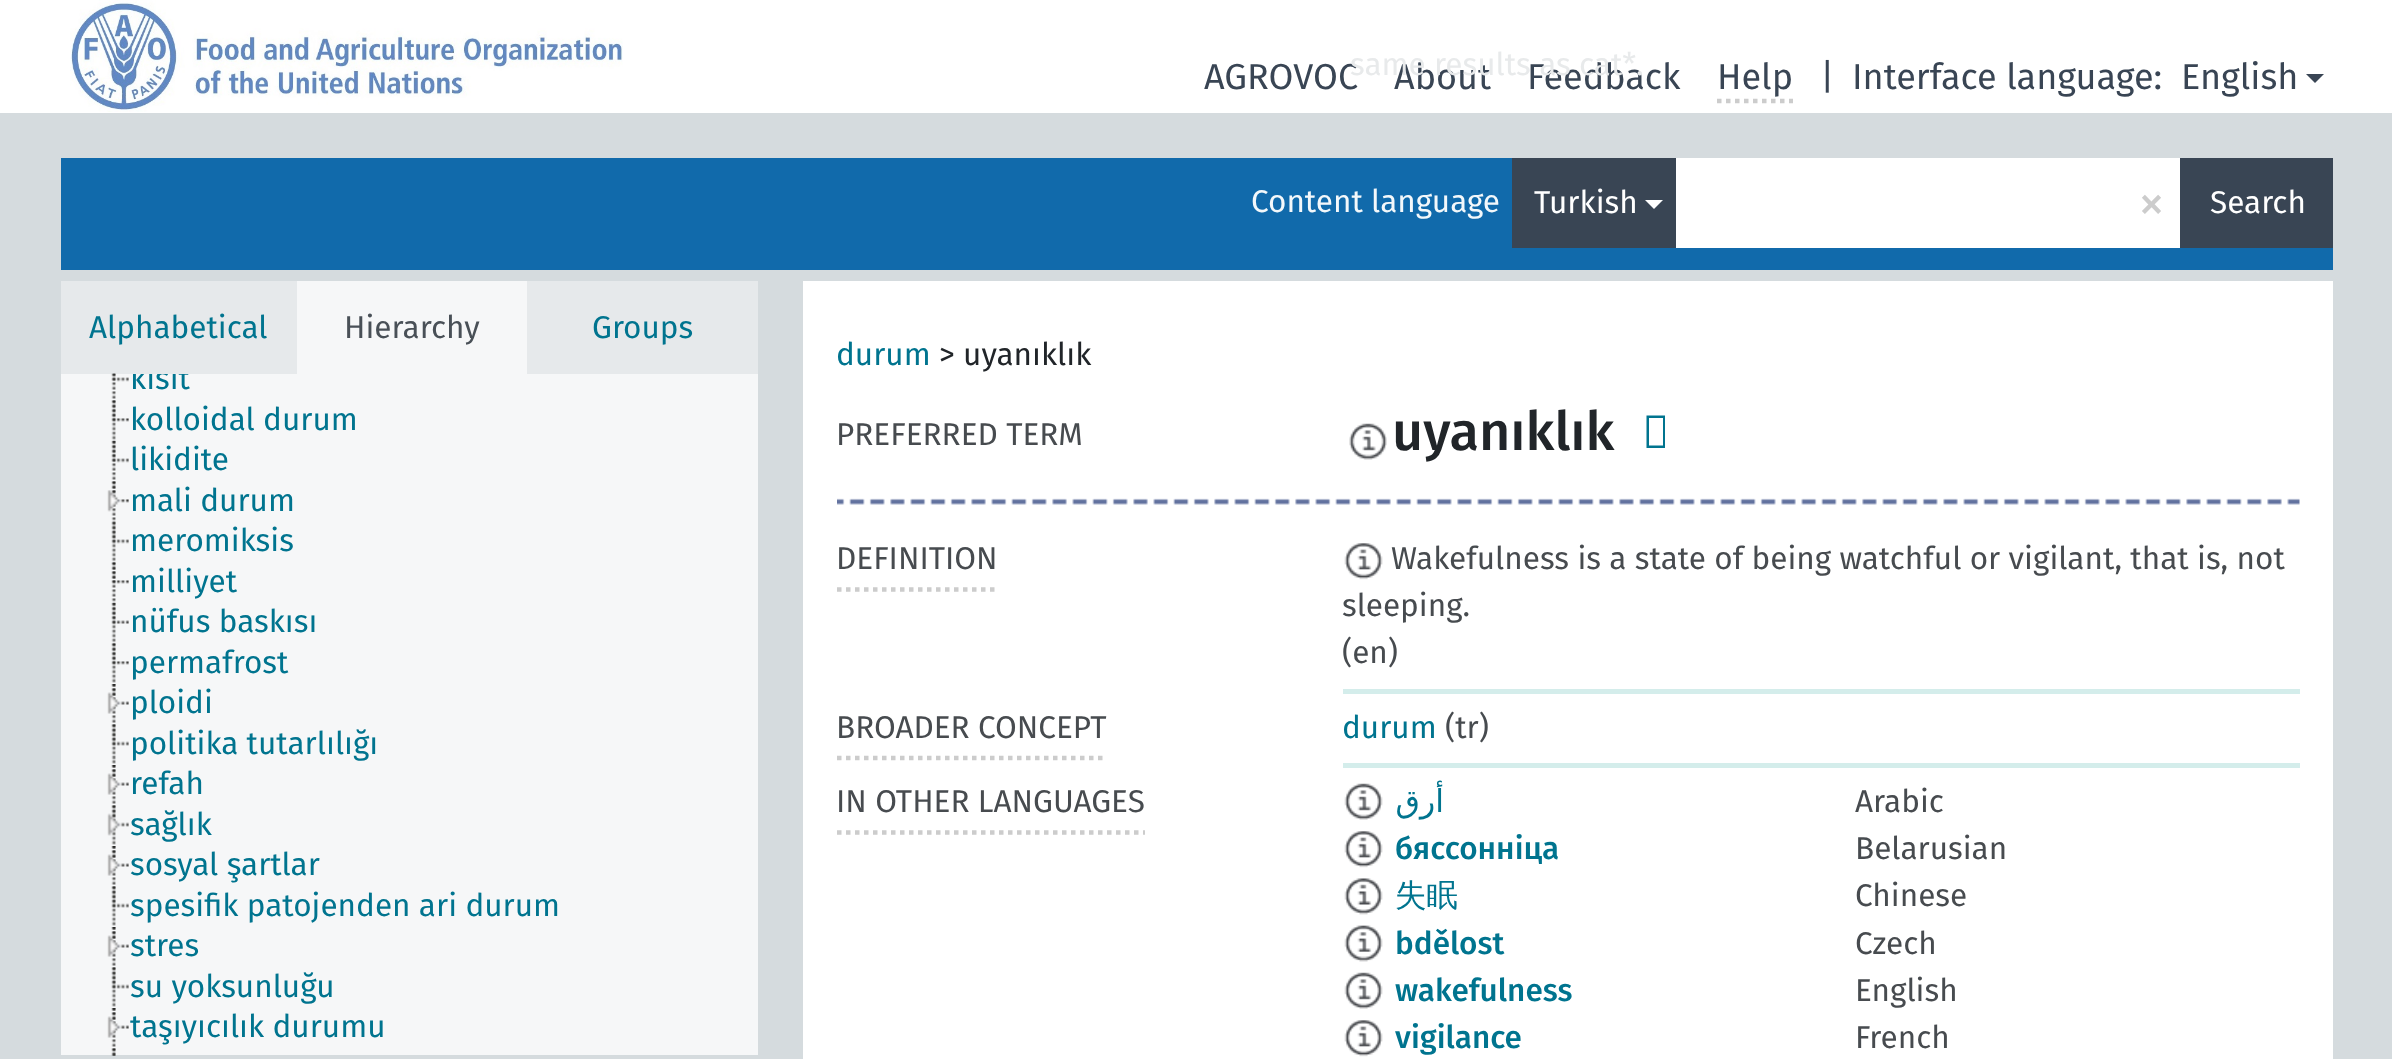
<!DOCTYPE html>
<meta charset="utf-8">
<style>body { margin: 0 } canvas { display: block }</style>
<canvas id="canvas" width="2392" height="1059"></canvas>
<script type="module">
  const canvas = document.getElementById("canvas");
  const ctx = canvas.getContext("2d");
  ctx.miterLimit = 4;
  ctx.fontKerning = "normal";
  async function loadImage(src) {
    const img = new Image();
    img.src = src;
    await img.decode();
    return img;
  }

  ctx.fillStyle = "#d5dbde";
  ctx.fillRect(0, 0, 2392, 1059);
  ctx.fillStyle = "#ffffff";
  ctx.fillRect(0, 0, 2392, 113);
  ctx.drawImage(await loadImage("img1.png"), 70, 0, 553, 112);
  ctx.font = "36px Fira Sans";
  ctx.fillStyle = "#394554";
  ctx.fillText("AGROVOC", 1204, 89);
  ctx.fillText("About", 1394, 89);
  ctx.fillText("Feedback", 1527, 89);
  ctx.font = "31.5px Fira Sans";
  ctx.fillStyle = "#e8eaeb";
  ctx.fillText("same results as cat*.", 1350, 75);
  ctx.font = "36px Fira Sans";
  ctx.fillStyle = "#394554";
  ctx.fillText("Help", 1717, 89);
  ctx.beginPath();
  ctx.moveTo(1717, 101);
  ctx.lineTo(1793, 101);
  ctx.strokeStyle = "#cccccc";
  ctx.lineWidth = 4.5;
  ctx.setLineDash([4.5, 4.5]);
  ctx.stroke();
  ctx.fillText("|", 1820, 89);
  ctx.fillText("Interface language:", 1852, 89);
  ctx.fillText("English", 2181, 89);
  ctx.beginPath();
  ctx.moveTo(2306, 74);
  ctx.lineTo(2324, 74);
  ctx.lineTo(2315, 83);
  ctx.closePath();
  ctx.fill();
  ctx.fillStyle = "#116aab";
  ctx.fillRect(61, 158, 2272, 112);
  ctx.font = "31.5px Fira Sans";
  ctx.fillStyle = "#f3f8fb";
  ctx.fillText("Content language", 1251, 212);
  ctx.fillStyle = "#394554";
  ctx.fillRect(1512, 158, 164, 90);
  ctx.fillStyle = "#ffffff";
  ctx.fillText("Turkish", 1534, 213);
  ctx.beginPath();
  ctx.moveTo(1645, 200);
  ctx.lineTo(1663, 200);
  ctx.lineTo(1654, 209);
  ctx.closePath();
  ctx.fill();
  ctx.fillRect(1676, 158, 504, 90);
  ctx.font = "54px Fira Sans";
  ctx.fillStyle = "#cccccc";
  ctx.fillText("×", 2138, 221);
  ctx.fillStyle = "#394554";
  ctx.fillRect(2180, 158, 153, 90);
  ctx.font = "31.5px Fira Sans";
  ctx.fillStyle = "#ffffff";
  ctx.fillText("Search", 2210, 213);
  ctx.fillStyle = "#e6e9eb";
  ctx.fillRect(61, 281, 236, 93);
  ctx.fillStyle = "#00748f";
  ctx.fillText("Alphabetical", 89, 338);
  ctx.fillStyle = "#f6f7f8";
  ctx.fillRect(297, 281, 230, 93);
  ctx.fillStyle = "#495057";
  ctx.fillText("Hierarchy", 344, 338);
  ctx.fillStyle = "#e6e9eb";
  ctx.fillRect(527, 281, 231, 93);
  ctx.fillStyle = "#00748f";
  ctx.fillText("Groups", 592, 338);
  ctx.fillStyle = "#f6f7f8";
  ctx.fillRect(61, 374, 697, 681);
  ctx.drawImage(await loadImage("img2.png"), 111, 373, 5, 26);
  ctx.drawImage(await loadImage("img3.png"), 111, 374, 18, 8);
  ctx.save();
  ctx.beginPath();
  ctx.rect(61, 374, 697, 681);
  ctx.clip();
  ctx.fillStyle = "#00748f";
  ctx.fillText("kısıt", 130, 389);
  ctx.restore();
  ctx.drawImage(await loadImage("img4.png"), 111, 400, 5, 40);
  ctx.drawImage(await loadImage("img5.png"), 111, 400, 18, 22);
  ctx.fillStyle = "#00748f";
  ctx.fillText("kolloidal durum", 130, 430);
  ctx.drawImage(await loadImage("img6.png"), 111, 441, 5, 39);
  ctx.drawImage(await loadImage("img7.png"), 111, 440, 18, 23);
  ctx.fillText("likidite", 130, 470);
  ctx.drawImage(await loadImage("img8.png"), 111, 481, 5, 40);
  ctx.drawImage(await loadImage("img9.png"), 107, 481, 22, 31);
  ctx.fillText("mali durum", 130, 511);
  ctx.drawImage(await loadImage("img10.png"), 111, 521, 5, 41);
  ctx.drawImage(await loadImage("img11.png"), 111, 521, 18, 23);
  ctx.fillText("meromiksis", 130, 551);
  ctx.drawImage(await loadImage("img8.png"), 111, 562, 5, 40);
  ctx.drawImage(await loadImage("img12.png"), 111, 562, 18, 22);
  ctx.fillText("milliyet", 130, 592);
  ctx.drawImage(await loadImage("img10.png"), 111, 602, 5, 41);
  ctx.drawImage(await loadImage("img13.png"), 111, 603, 18, 21);
  ctx.fillText("nüfus baskısı", 130, 632);
  ctx.drawImage(await loadImage("img4.png"), 111, 643, 5, 40);
  ctx.drawImage(await loadImage("img5.png"), 111, 643, 18, 22);
  ctx.fillText("permafrost", 130, 673);
  ctx.drawImage(await loadImage("img6.png"), 111, 684, 5, 39);
  ctx.drawImage(await loadImage("img14.png"), 107, 684, 22, 30);
  ctx.fillText("ploidi", 130, 713);
  ctx.drawImage(await loadImage("img15.png"), 111, 724, 5, 40);
  ctx.drawImage(await loadImage("img16.png"), 111, 724, 18, 22);
  ctx.fillText("politika tutarlılığı", 130, 754);
  ctx.drawImage(await loadImage("img6.png"), 111, 765, 5, 39);
  ctx.drawImage(await loadImage("img17.png"), 107, 765, 22, 30);
  ctx.fillText("refah", 130, 794);
  ctx.drawImage(await loadImage("img18.png"), 111, 805, 5, 40);
  ctx.drawImage(await loadImage("img19.png"), 107, 805, 22, 31);
  ctx.fillText("sağlık", 130, 835);
  ctx.drawImage(await loadImage("img6.png"), 111, 846, 5, 39);
  ctx.drawImage(await loadImage("img17.png"), 107, 846, 22, 30);
  ctx.fillText("sosyal şartlar", 130, 875);
  ctx.drawImage(await loadImage("img4.png"), 111, 886, 5, 40);
  ctx.drawImage(await loadImage("img16.png"), 111, 886, 18, 22);
  ctx.fillText("spesifik patojenden ari durum", 130, 916);
  ctx.drawImage(await loadImage("img6.png"), 111, 927, 5, 39);
  ctx.drawImage(await loadImage("img17.png"), 107, 927, 22, 30);
  ctx.fillText("stres", 130, 956);
  ctx.drawImage(await loadImage("img4.png"), 111, 967, 5, 40);
  ctx.drawImage(await loadImage("img16.png"), 111, 967, 18, 22);
  ctx.fillText("su yoksunluğu", 130, 997);
  ctx.drawImage(await loadImage("img6.png"), 111, 1008, 5, 39);
  ctx.drawImage(await loadImage("img17.png"), 107, 1008, 22, 30);
  ctx.fillText("taşıyıcılık durumu", 130, 1037);
  ctx.drawImage(await loadImage("img20.png"), 111, 1048, 5, 8);
  ctx.drawImage(await loadImage("img21.png"), 111, 1048, 5, 8);
  ctx.fillStyle = "#ffffff";
  ctx.fillRect(803, 281, 1530, 778);
  ctx.fillStyle = "#00748f";
  ctx.fillText("durum", 836, 365);
  ctx.fillStyle = "#212529";
  ctx.fillText("> uyanıklık", 939, 365);
  ctx.fillStyle = "#474b4f";
  ctx.fillText("PREFERRED TERM", 836, 445);
  ctx.drawImage(await loadImage("img22.png"), 1349, 423, 38, 37);
  ctx.font = "500 54px Fira Sans";
  ctx.fillStyle = "#212529";
  ctx.fillText("uyanıklık", 1392, 450);
  ctx.fillStyle = "#00748f";
  ctx.beginPath();
  ctx.moveTo(1646.5, 448);
  ctx.lineTo(1646.5, 415.5);
  ctx.lineTo(1665, 415.5);
  ctx.lineTo(1665, 448);
  ctx.closePath();
  ctx.moveTo(1649, 445.5);
  ctx.lineTo(1663, 445.5);
  ctx.lineTo(1663, 418);
  ctx.lineTo(1649, 418);
  ctx.closePath();
  ctx.fill();
  ctx.drawImage(await loadImage("img23.png"), 837, 498, 1463, 7);
  ctx.beginPath();
  ctx.moveTo(837, 589.5);
  ctx.lineTo(997, 589.5);
  ctx.stroke();
  ctx.font = "31.5px Fira Sans";
  ctx.fillStyle = "#474b4f";
  ctx.fillText("DEFINITION", 836, 569);
  ctx.fillStyle = "#d4edeb";
  ctx.fillRect(1343, 689, 957, 5);
  ctx.drawImage(await loadImage("img24.png"), 1344, 543, 39, 37);
  ctx.fillStyle = "#474b4f";
  ctx.fillText("Wakefulness is a state of being watchful or vigilant, that is, not", 1391, 569);
  ctx.fillText("sleeping.", 1342, 616);
  ctx.fillText("(en)", 1342, 663);
  ctx.beginPath();
  ctx.moveTo(837, 758);
  ctx.lineTo(1107, 758);
  ctx.stroke();
  ctx.fillText("BROADER CONCEPT", 836, 738);
  ctx.fillStyle = "#d4edeb";
  ctx.fillRect(1343, 763, 957, 5);
  ctx.fillStyle = "#00748f";
  ctx.fillText("durum", 1342, 738);
  ctx.fillStyle = "#474b4f";
  ctx.fillText("(tr)", 1445, 738);
  ctx.beginPath();
  ctx.moveTo(837, 832.5);
  ctx.lineTo(1145, 832.5);
  ctx.stroke();
  ctx.fillText("IN OTHER LANGUAGES", 836, 812);
  ctx.drawImage(await loadImage("img25.png"), 1344, 783, 39, 37);
  ctx.direction = "rtl";
  ctx.font = "31.5px DejaVu Sans";
  ctx.fillStyle = "#00748f";
  ctx.fillText("أرق", 1444, 812);
  ctx.direction = "ltr";
  ctx.font = "31.5px Fira Sans";
  ctx.fillStyle = "#474b4f";
  ctx.fillText("Arabic", 1855, 812);
  ctx.drawImage(await loadImage("img24.png"), 1344, 831, 39, 37);
  ctx.font = "500 31.5px Fira Sans";
  ctx.fillStyle = "#00748f";
  ctx.fillText("бяссонніца", 1395, 859);
  ctx.font = "31.5px Fira Sans";
  ctx.fillStyle = "#474b4f";
  ctx.fillText("Belarusian", 1855, 859);
  ctx.drawImage(await loadImage("img26.png"), 1344, 878, 39, 37);
  ctx.font = "500 31.5px WenQuanYi Zen Hei";
  ctx.fillStyle = "#00748f";
  ctx.fillText("失眠", 1395, 906);
  ctx.font = "31.5px Fira Sans";
  ctx.fillStyle = "#474b4f";
  ctx.fillText("Chinese", 1855, 906);
  ctx.drawImage(await loadImage("img27.png"), 1344, 925, 39, 37);
  ctx.font = "500 31.5px Fira Sans";
  ctx.fillStyle = "#00748f";
  ctx.fillText("bdělost", 1395, 954);
  ctx.font = "31.5px Fira Sans";
  ctx.fillStyle = "#474b4f";
  ctx.fillText("Czech", 1855, 954);
  ctx.drawImage(await loadImage("img25.png"), 1344, 972, 39, 37);
  ctx.font = "500 31.5px Fira Sans";
  ctx.fillStyle = "#00748f";
  ctx.fillText("wakefulness", 1395, 1001);
  ctx.font = "31.5px Fira Sans";
  ctx.fillStyle = "#474b4f";
  ctx.fillText("English", 1855, 1001);
  ctx.drawImage(await loadImage("img24.png"), 1344, 1020, 39, 37);
  ctx.font = "500 31.5px Fira Sans";
  ctx.fillStyle = "#00748f";
  ctx.fillText("vigilance", 1395, 1048);
  ctx.font = "31.5px Fira Sans";
  ctx.fillStyle = "#474b4f";
  ctx.fillText("French", 1855, 1048);
</script>
